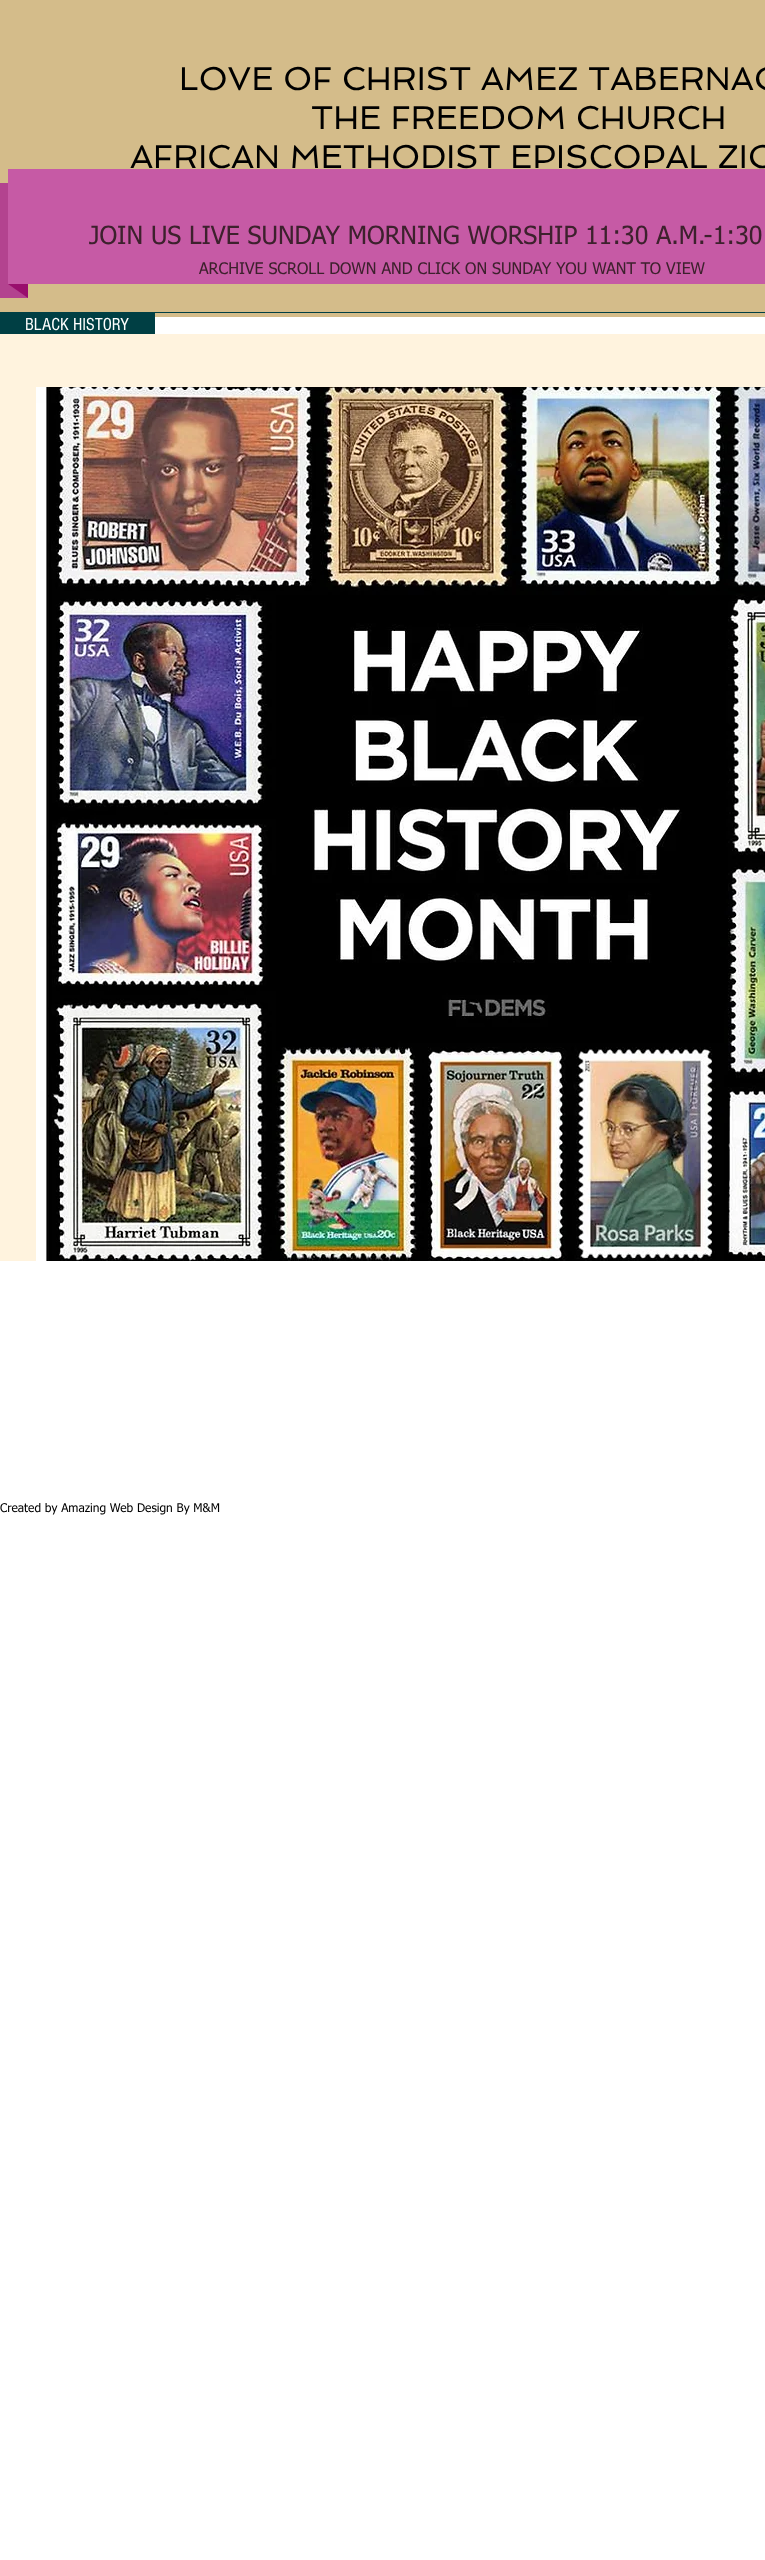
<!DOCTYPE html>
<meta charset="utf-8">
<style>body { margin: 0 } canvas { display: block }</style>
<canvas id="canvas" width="765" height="2560"></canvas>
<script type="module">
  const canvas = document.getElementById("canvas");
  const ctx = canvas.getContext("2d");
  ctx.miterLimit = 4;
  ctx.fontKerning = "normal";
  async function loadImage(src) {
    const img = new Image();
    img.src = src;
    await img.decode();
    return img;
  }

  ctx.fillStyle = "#ffffff";
  ctx.fillRect(0, 0, 765, 2560);
  ctx.fillStyle = "#d4bc8a";
  ctx.fillRect(0, 0, 765, 317);
  ctx.font = "33px Spinnaker";
  ctx.fillStyle = "#000000";
  ctx.fillText("LOVE OF CHRIST AMEZ TABERNAC", 179, 90);
  ctx.fillText("THE FREEDOM CHURCH", 311, 129);
  ctx.fillText("AFRICAN METHODIST EPISCOPAL ZIO", 130, 168);
  ctx.fillStyle = "#b3438f";
  ctx.beginPath();
  ctx.moveTo(-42, 183);
  ctx.lineTo(28, 183);
  ctx.lineTo(28, 283);
  ctx.lineTo(18, 283);
  ctx.closePath();
  ctx.fill();
  ctx.save();
  ctx.beginPath();
  ctx.rect(0, 241, 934, 57);
  ctx.clip();
  ctx.beginPath();
  ctx.moveTo(28, 298);
  ctx.lineTo(-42, 298);
  ctx.lineTo(18, 198);
  ctx.lineTo(28, 198);
  ctx.closePath();
  ctx.fill();
  ctx.restore();
  ctx.fillStyle = "#c65aa5";
  ctx.fillRect(8, 169, 757, 115);
  ctx.font = "25px tahoma";
  ctx.fillStyle = "#3d212d";
  ctx.fillText("JOIN US LIVE SUNDAY MORNING WORSHIP 11:30 A.M.-1:30", 89, 244);
  ctx.font = "16px tahoma";
  ctx.fillText("ARCHIVE SCROLL DOWN AND CLICK ON SUNDAY YOU WANT TO VIEW", 199, 274);
  ctx.fillStyle = "#990e6d";
  ctx.beginPath();
  ctx.moveTo(28, 284);
  ctx.lineTo(28, 298);
  ctx.lineTo(8, 284);
  ctx.closePath();
  ctx.fill();
  ctx.fillStyle = "#003f44";
  ctx.fillRect(155, 312, 610, 1);
  ctx.fillRect(0, 312, 155, 22);
  ctx.font = "18px 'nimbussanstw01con'";
  ctx.fillStyle = "#ffffff";
  ctx.fillText("BLACK HISTORY", 25, 330);
  ctx.fillStyle = "#fff3de";
  ctx.fillRect(0, 334, 765, 927);
  ctx.drawImage(await loadImage("img1.png"), 36, 387, 729, 874);
  ctx.font = "12px tahoma";
  ctx.fillStyle = "#000000";
  ctx.fillText("Created by Amazing Web Design By M&M", 0, 1512);
</script>
